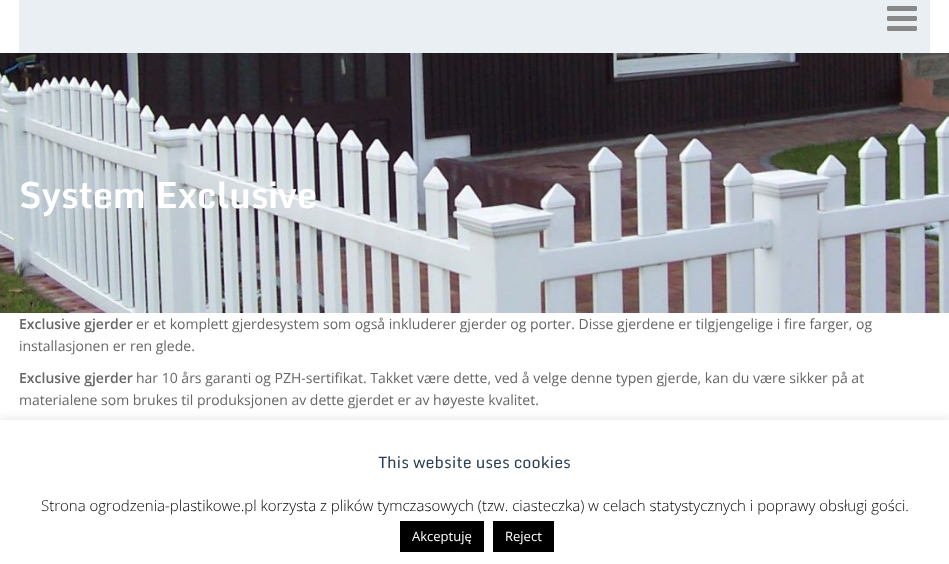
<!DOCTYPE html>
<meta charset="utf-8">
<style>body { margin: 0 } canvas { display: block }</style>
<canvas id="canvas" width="949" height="564"></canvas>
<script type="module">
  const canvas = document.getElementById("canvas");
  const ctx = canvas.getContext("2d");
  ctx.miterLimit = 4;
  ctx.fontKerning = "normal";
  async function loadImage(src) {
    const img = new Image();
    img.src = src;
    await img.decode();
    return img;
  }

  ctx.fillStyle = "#ffffff";
  ctx.fillRect(0, 0, 949, 564);
  ctx.fillStyle = "#eaeff3";
  ctx.fillRect(19, 0, 911, 53);
  ctx.drawImage(await loadImage("img1.png"), 887, 6, 30, 25);
  ctx.drawImage(await loadImage("img2.png"), 0, 53, 949, 260);
  ctx.font = "bold 36px Monda";
  ctx.fillStyle = "#ffffff";
  ctx.fillText("System Exclusive", 19, 208);
  ctx.font = "600 14px Open Sans";
  ctx.fillStyle = "#666666";
  ctx.fillText("Exclusive gjerder", 19, 329);
  ctx.font = "14px Open Sans";
  ctx.fillText("er et komplett gjerdesystem som også inkluderer gjerder og porter. Disse gjerdene er tilgjengelige i fire farger, og", 136, 329);
  ctx.fillText("installasjonen er ren glede.", 19, 351);
  ctx.font = "600 14px Open Sans";
  ctx.fillText("Exclusive gjerder", 19, 383);
  ctx.font = "14px Open Sans";
  ctx.fillText("har 10 års garanti og PZH-sertifikat. Takket være dette, ved å velge denne typen gjerde, kan du være sikker på at", 136, 383);
  ctx.fillText("materialene som brukes til produksjonen av dette gjerdet er av høyeste kvalitet.", 19, 405);
  ctx.fillStyle = "rgba(172, 171, 171, 0.3)";
  ctx.filter = "blur(5px)";
  ctx.beginPath();
  ctx.rect(0, 419, 949, 144);
  ctx.fill();
  ctx.filter = "none";
  ctx.fillStyle = "#ffffff";
  ctx.fillRect(0, 420, 949, 144);
  ctx.font = "16px Monda";
  ctx.fillStyle = "#2a3f54";
  ctx.fillText("This website uses cookies", 378, 468);
  ctx.font = "300 15px Open Sans";
  ctx.fillStyle = "#000000";
  ctx.fillText("Strona ogrodzenia-plastikowe.pl korzysta z plików tymczasowych (tzw. ciasteczka) w celach statystycznych i poprawy obsługi gości.", 41, 511);
  ctx.fillRect(400, 521, 84, 31);
  ctx.font = "13px Open Sans";
  ctx.fillStyle = "#ffffff";
  ctx.fillText("Akceptuję", 412, 541);
  ctx.fillStyle = "#000000";
  ctx.fillRect(493, 521, 61, 31);
  ctx.fillStyle = "#ffffff";
  ctx.fillText("Reject", 505, 541);
</script>
